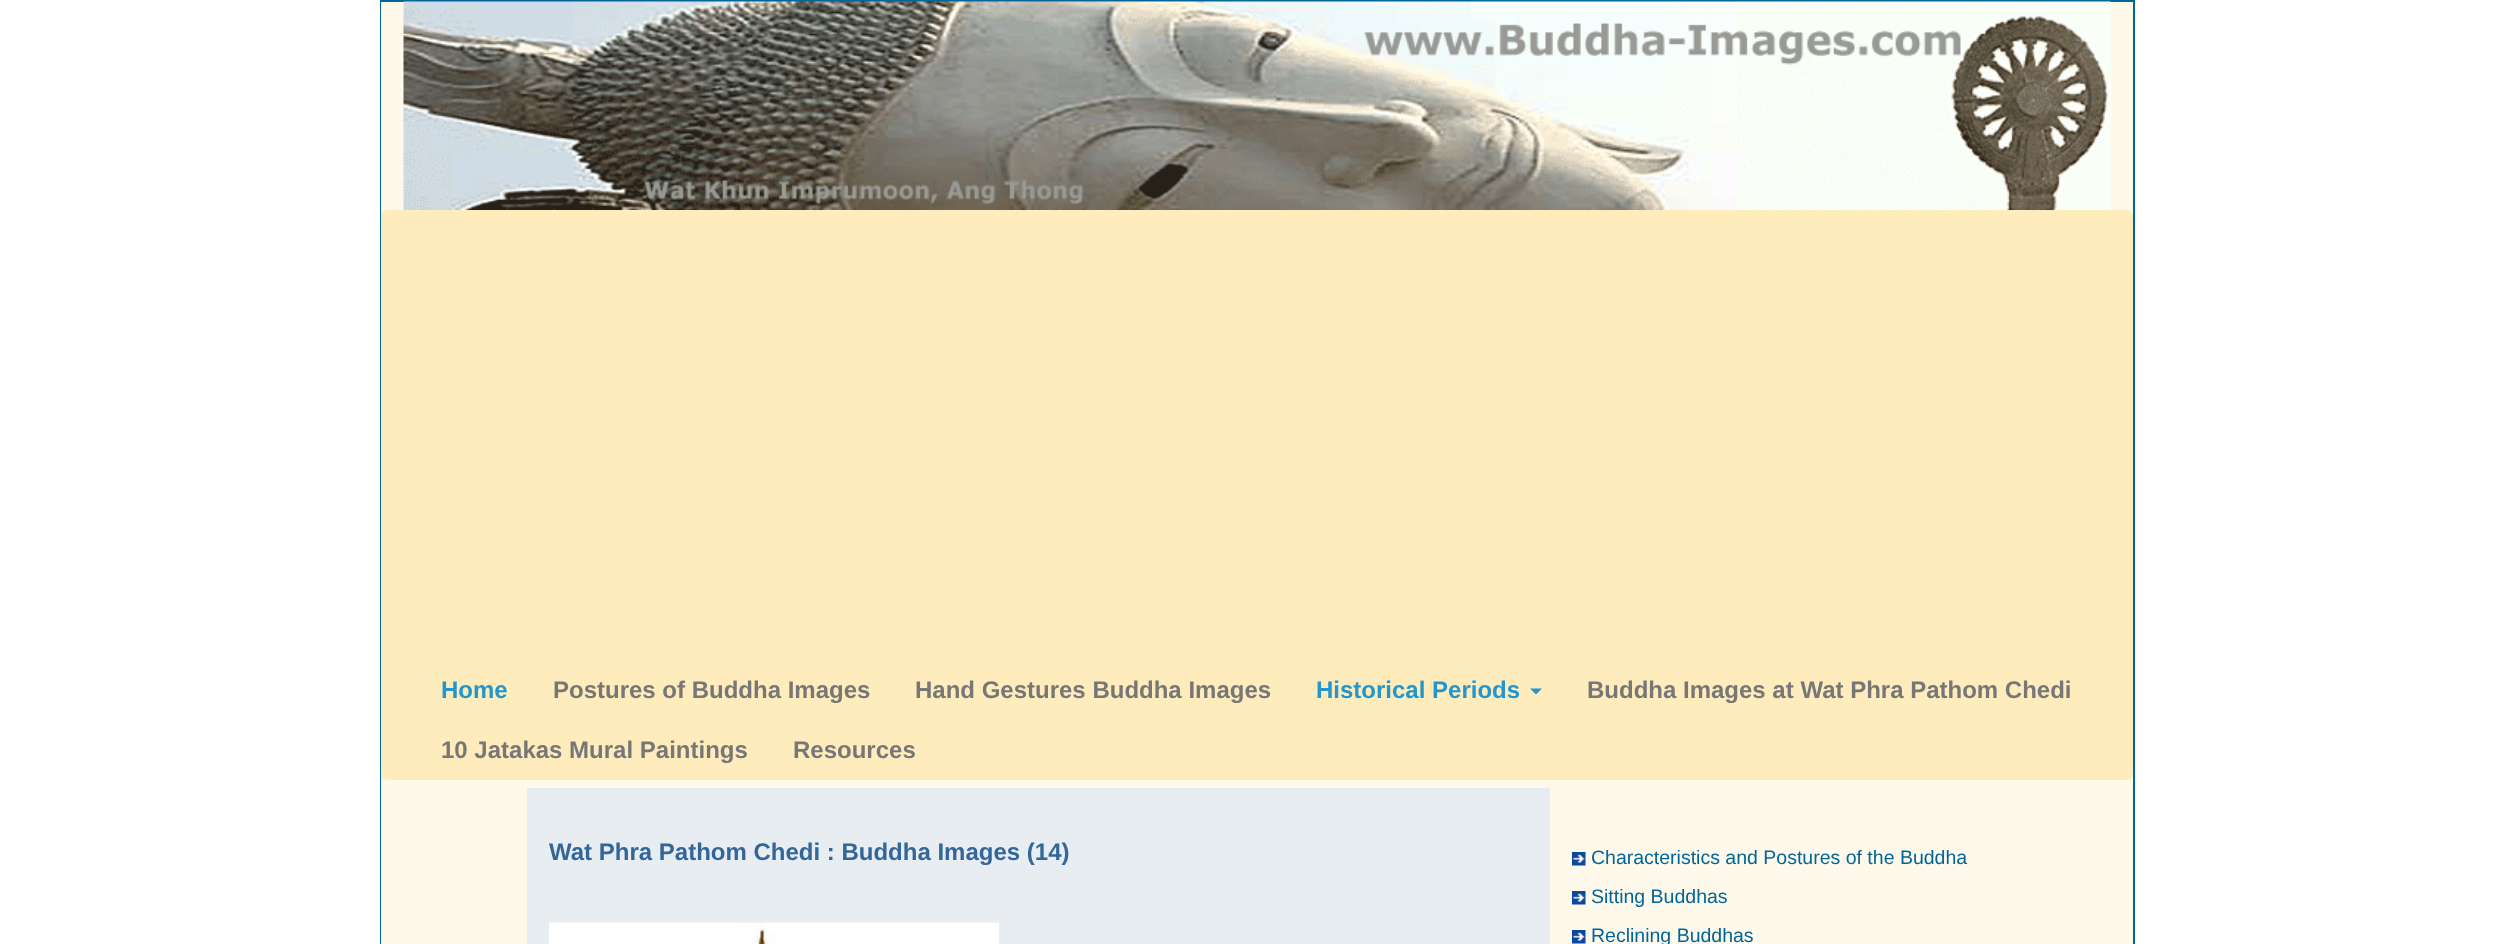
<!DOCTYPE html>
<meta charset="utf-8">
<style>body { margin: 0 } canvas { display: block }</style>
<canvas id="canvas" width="2513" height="944"></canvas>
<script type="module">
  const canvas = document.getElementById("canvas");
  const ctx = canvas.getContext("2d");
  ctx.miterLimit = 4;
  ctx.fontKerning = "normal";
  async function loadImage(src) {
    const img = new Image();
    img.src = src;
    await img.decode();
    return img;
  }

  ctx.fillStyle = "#ffffff";
  ctx.fillRect(0, 0, 2513, 944);
  ctx.strokeStyle = "#006699";
  ctx.lineWidth = 2;
  ctx.strokeRect(381, 1, 1753, 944);
  ctx.fillStyle = "#fff9eb";
  ctx.fillRect(381, 2, 1752, 942);
  ctx.drawImage(await loadImage("img1.png"), 403, 1, 1708, 209);
  ctx.fillStyle = "#ffecbc";
  ctx.beginPath();
  ctx.roundRect(381, 210, 1752, 570, 6);
  ctx.fill();
  ctx.font = "bold 24px Liberation Sans";
  ctx.fillStyle = "#2396cd";
  ctx.fillText("Home", 441, 698);
  ctx.fillStyle = "#777777";
  ctx.fillText("Postures of Buddha Images", 553, 698);
  ctx.fillText("Hand Gestures Buddha Images", 915, 698);
  ctx.fillStyle = "#2396cd";
  ctx.fillText("Historical Periods", 1316, 698);
  ctx.beginPath();
  ctx.moveTo(1530, 688.5);
  ctx.lineTo(1542, 688.5);
  ctx.lineTo(1536, 694.5);
  ctx.closePath();
  ctx.fill();
  ctx.fillStyle = "#777777";
  ctx.fillText("Buddha Images at Wat Phra Pathom Chedi", 1587, 698);
  ctx.fillText("10 Jatakas Mural Paintings", 441, 758);
  ctx.fillText("Resources", 793, 758);
  ctx.fillStyle = "#e8edf1";
  ctx.fillRect(527, 788, 1023, 156);
  ctx.fillStyle = "#336699";
  ctx.fillText("Wat Phra Pathom Chedi : Buddha Images (14)", 549, 860);
  ctx.drawImage(await loadImage("img2.png"), 549, 922, 450, 22);
  ctx.drawImage(await loadImage("img3.png"), 1572, 852, 14, 14);
  ctx.font = "19.5px Liberation Sans";
  ctx.fillStyle = "#006699";
  ctx.fillText("Characteristics and Postures of the Buddha", 1591, 864);
  ctx.drawImage(await loadImage("img3.png"), 1572, 891, 14, 14);
  ctx.fillText("Sitting Buddhas", 1591, 903);
  ctx.drawImage(await loadImage("img3.png"), 1572, 930, 14, 14);
  ctx.fillText("Reclining Buddhas", 1591, 942);
</script>
